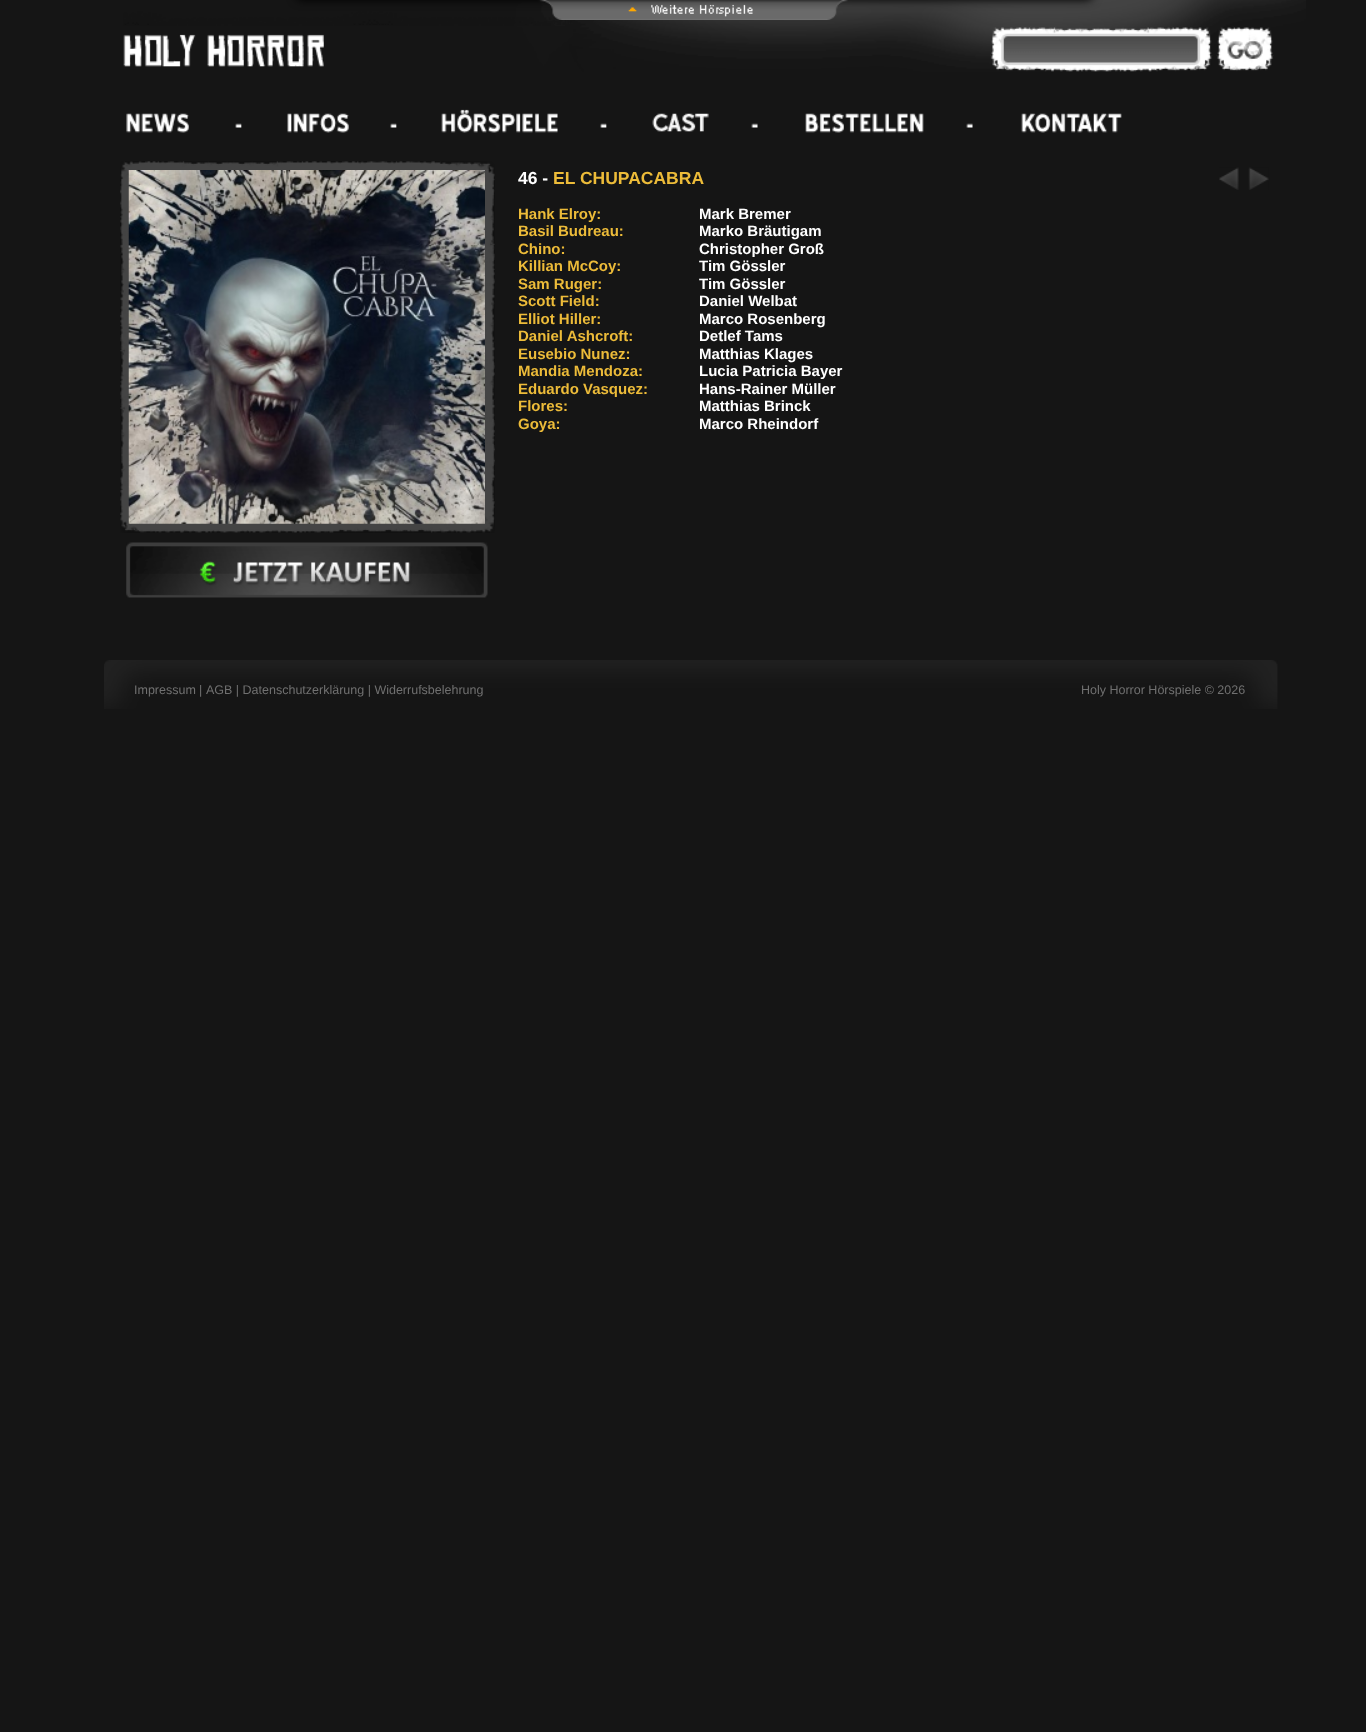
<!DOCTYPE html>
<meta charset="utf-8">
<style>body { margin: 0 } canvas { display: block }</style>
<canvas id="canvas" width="1366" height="1732"></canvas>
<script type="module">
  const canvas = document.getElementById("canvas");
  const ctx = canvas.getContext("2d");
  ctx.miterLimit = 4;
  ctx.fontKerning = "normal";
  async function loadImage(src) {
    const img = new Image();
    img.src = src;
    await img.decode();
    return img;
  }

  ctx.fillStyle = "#151515";
  ctx.fillRect(0, 0, 1366, 1732);
  ctx.drawImage(await loadImage("img1.png"), 123, 0, 1183, 72);
  ctx.fillStyle = "#000000";
  ctx.filter = "blur(5px)";
  ctx.beginPath();
  ctx.roundRect(296, -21, 797, 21, 6);
  ctx.fill();
  ctx.filter = "none";
  ctx.drawImage(await loadImage("img2.png"), 539, 0, 309, 20);
  ctx.drawImage(await loadImage("img3.png"), 126, 113, 63, 20);
  ctx.drawImage(await loadImage("img4.png"), 235, 123, 7, 5);
  ctx.drawImage(await loadImage("img5.png"), 287, 113, 62, 20);
  ctx.drawImage(await loadImage("img4.png"), 390, 123, 7, 5);
  ctx.drawImage(await loadImage("img6.png"), 441, 109, 117, 24);
  ctx.drawImage(await loadImage("img4.png"), 600, 123, 7, 5);
  ctx.drawImage(await loadImage("img7.png"), 652, 113, 57, 19);
  ctx.drawImage(await loadImage("img8.png"), 751, 123, 7, 5);
  ctx.drawImage(await loadImage("img9.png"), 805, 113, 119, 20);
  ctx.drawImage(await loadImage("img8.png"), 966, 123, 7, 5);
  ctx.drawImage(await loadImage("img10.png"), 1021, 113, 101, 20);
  ctx.drawImage(await loadImage("img11.png"), 120, 161, 375, 372);
  ctx.drawImage(await loadImage("img12.png"), 128, 170, 357, 354);
  ctx.drawImage(await loadImage("img13.png"), 126, 542, 362, 56);
  ctx.font = "bold 17.5px Liberation Sans";
  ctx.fillStyle = "#ffffff";
  ctx.fillText("46 -", 518, 184);
  ctx.fillStyle = "#ecbb39";
  ctx.fillText("EL CHUPACABRA", 553, 184);
  ctx.drawImage(await loadImage("img14.png"), 1219, 167, 20, 23);
  ctx.drawImage(await loadImage("img15.png"), 1248, 167, 21, 23);
  ctx.font = "bold 15px Liberation Sans";
  ctx.fillText("Hank Elroy:", 518, 219);
  ctx.fillStyle = "#ffffff";
  ctx.fillText("Mark Bremer", 699, 219);
  ctx.fillStyle = "#ecbb39";
  ctx.fillText("Basil Budreau:", 518, 236);
  ctx.fillStyle = "#ffffff";
  ctx.fillText("Marko Bräutigam", 699, 236);
  ctx.fillStyle = "#ecbb39";
  ctx.fillText("Chino:", 518, 254);
  ctx.fillStyle = "#ffffff";
  ctx.fillText("Christopher Groß", 699, 254);
  ctx.fillStyle = "#ecbb39";
  ctx.fillText("Killian McCoy:", 518, 271);
  ctx.fillStyle = "#ffffff";
  ctx.fillText("Tim Gössler", 699, 271);
  ctx.fillStyle = "#ecbb39";
  ctx.fillText("Sam Ruger:", 518, 289);
  ctx.fillStyle = "#ffffff";
  ctx.fillText("Tim Gössler", 699, 289);
  ctx.fillStyle = "#ecbb39";
  ctx.fillText("Scott Field:", 518, 306);
  ctx.fillStyle = "#ffffff";
  ctx.fillText("Daniel Welbat", 699, 306);
  ctx.fillStyle = "#ecbb39";
  ctx.fillText("Elliot Hiller:", 518, 324);
  ctx.fillStyle = "#ffffff";
  ctx.fillText("Marco Rosenberg", 699, 324);
  ctx.fillStyle = "#ecbb39";
  ctx.fillText("Daniel Ashcroft:", 518, 341);
  ctx.fillStyle = "#ffffff";
  ctx.fillText("Detlef Tams", 699, 341);
  ctx.fillStyle = "#ecbb39";
  ctx.fillText("Eusebio Nunez:", 518, 359);
  ctx.fillStyle = "#ffffff";
  ctx.fillText("Matthias Klages", 699, 359);
  ctx.fillStyle = "#ecbb39";
  ctx.fillText("Mandia Mendoza:", 518, 376);
  ctx.fillStyle = "#ffffff";
  ctx.fillText("Lucia Patricia Bayer", 699, 376);
  ctx.fillStyle = "#ecbb39";
  ctx.fillText("Eduardo Vasquez:", 518, 394);
  ctx.fillStyle = "#ffffff";
  ctx.fillText("Hans-Rainer Müller", 699, 394);
  ctx.fillStyle = "#ecbb39";
  ctx.fillText("Flores:", 518, 411);
  ctx.fillStyle = "#ffffff";
  ctx.fillText("Matthias Brinck", 699, 411);
  ctx.fillStyle = "#ecbb39";
  ctx.fillText("Goya:", 518, 429);
  ctx.fillStyle = "#ffffff";
  ctx.fillText("Marco Rheindorf", 699, 429);
  ctx.drawImage(await loadImage("img16.png"), 104, 660, 1174, 49);
  ctx.font = "12.5px Liberation Sans";
  ctx.fillStyle = "#707070";
  ctx.fillText("Impressum", 134, 694);
  ctx.fillText("|", 199, 694);
  ctx.fillText("AGB | Datenschutzerklärung | Widerrufsbelehrung", 206, 694);
  ctx.fillText("Holy Horror Hörspiele © 2026", 1081, 694);
</script>
